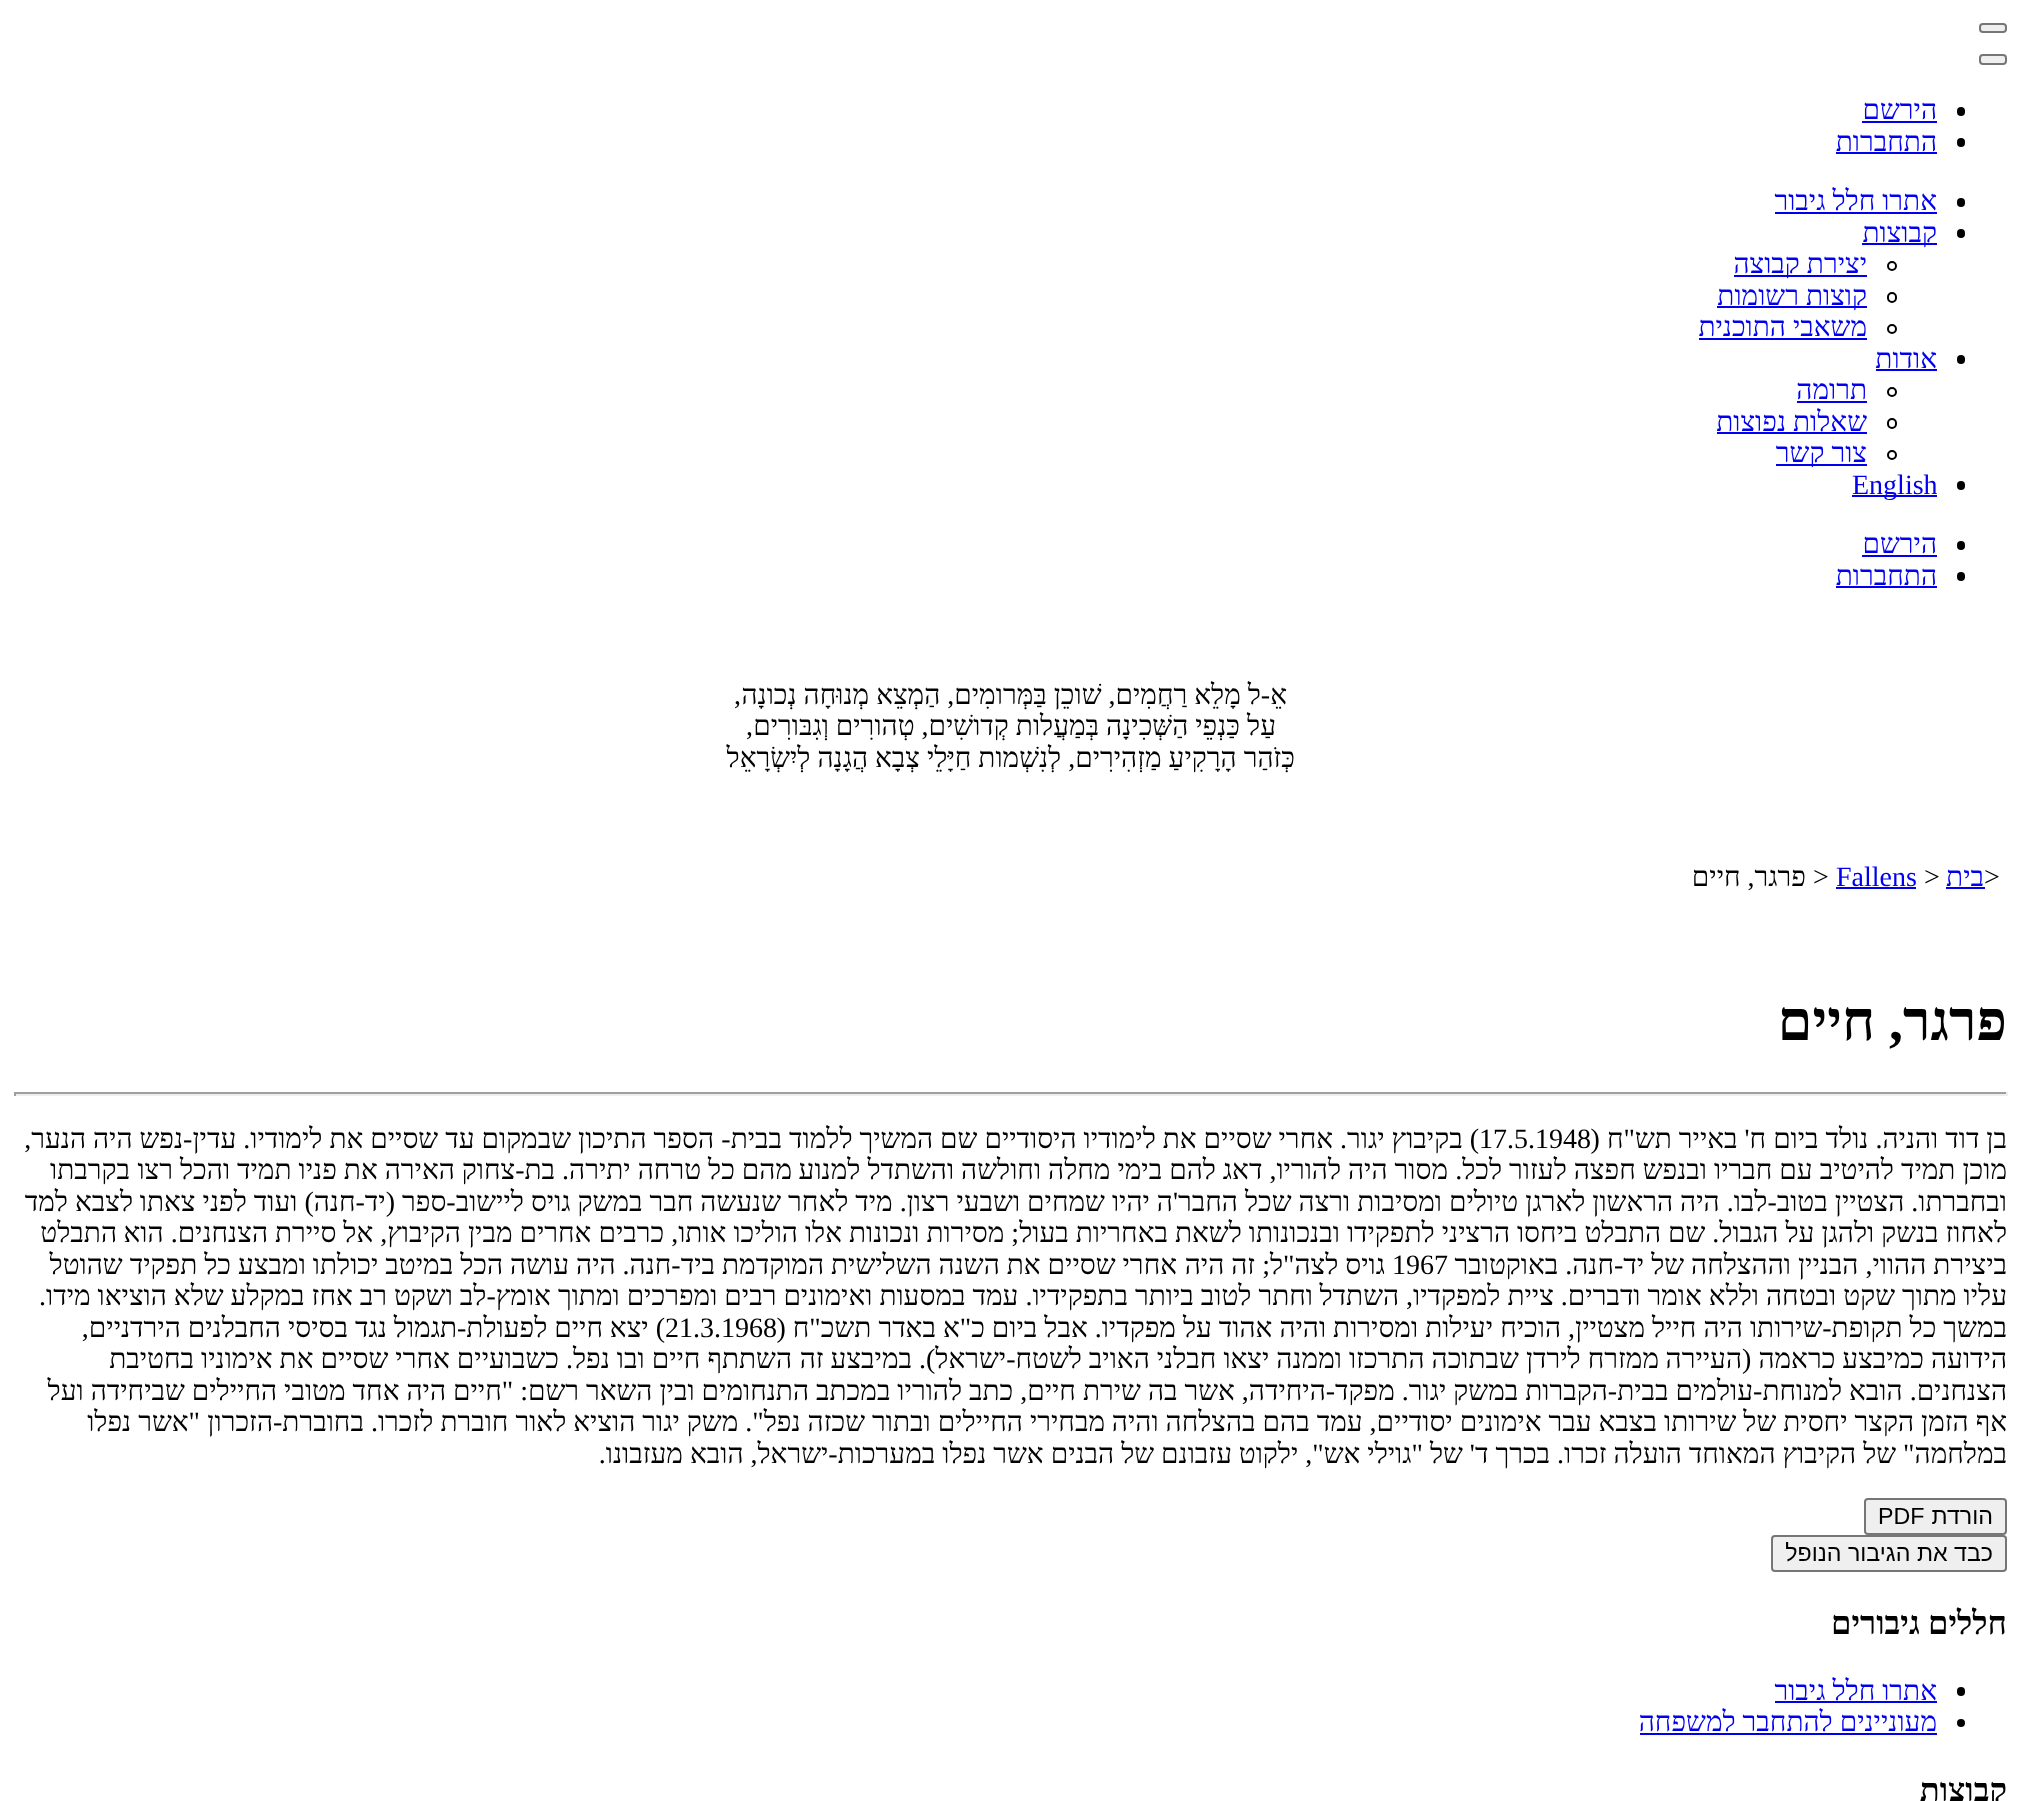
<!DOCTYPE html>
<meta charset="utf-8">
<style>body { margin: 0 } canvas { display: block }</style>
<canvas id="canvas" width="2020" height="1801"></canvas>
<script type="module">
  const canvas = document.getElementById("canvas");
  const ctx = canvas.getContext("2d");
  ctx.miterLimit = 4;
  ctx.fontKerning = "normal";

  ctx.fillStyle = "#ffffff";
  ctx.fillRect(0, 0, 2020, 1801);
  ctx.fillStyle = "#efefef";
  ctx.beginPath();
  ctx.roundRect(1980, 24, 26, 8, 3);
  ctx.fill();
  ctx.strokeStyle = "#767676";
  ctx.lineWidth = 2;
  ctx.stroke();
  ctx.beginPath();
  ctx.roundRect(1980, 55, 26, 9, 3);
  ctx.fill();
  ctx.stroke();
  ctx.fillStyle = "#000000";
  ctx.beginPath();
  ctx.roundRect(1957, 107, 8, 9, 4);
  ctx.fill();
  ctx.direction = "rtl";
  ctx.font = "28px Liberation Serif";
  ctx.fillStyle = "#0000ee";
  ctx.fillText("הירשם", 1937, 119);
  ctx.fillRect(1862, 121, 75, 2);
  ctx.fillStyle = "#000000";
  ctx.beginPath();
  ctx.roundRect(1957, 138, 8, 9, 4);
  ctx.fill();
  ctx.fillStyle = "#0000ee";
  ctx.fillText("התחברות", 1937, 151);
  ctx.fillRect(1836, 152, 101, 2);
  ctx.fillStyle = "#000000";
  ctx.beginPath();
  ctx.roundRect(1957, 198, 8, 9, 4);
  ctx.fill();
  ctx.fillStyle = "#0000ee";
  ctx.fillText("אתרו חלל גיבור", 1937, 210);
  ctx.fillRect(1775, 212, 162, 2);
  ctx.fillStyle = "#000000";
  ctx.beginPath();
  ctx.roundRect(1957, 229, 8, 9, 4);
  ctx.fill();
  ctx.fillStyle = "#0000ee";
  ctx.fillRect(1862, 243, 75, 2);
  ctx.fillText("קבוצות", 1937, 242);
  ctx.beginPath();
  ctx.arc(1892, 266, 4, 0, Math.PI * 2);
  ctx.strokeStyle = "#000000";
  ctx.stroke();
  ctx.fillRect(1734, 275, 133, 2);
  ctx.fillText("יצירת קבוצה", 1867, 273);
  ctx.beginPath();
  ctx.roundRect(1888, 293, 8, 9, 4);
  ctx.stroke();
  ctx.fillRect(1717, 306, 150, 2);
  ctx.fillText("קוצות רשומות", 1867, 305);
  ctx.beginPath();
  ctx.arc(1892, 329, 4, 0, Math.PI * 2);
  ctx.stroke();
  ctx.fillText("משאבי התוכנית", 1867, 336);
  ctx.fillRect(1699, 338, 168, 2);
  ctx.fillStyle = "#000000";
  ctx.beginPath();
  ctx.roundRect(1957, 355, 8, 9, 4);
  ctx.fill();
  ctx.fillStyle = "#0000ee";
  ctx.fillText("אודות", 1937, 368);
  ctx.fillRect(1876, 369, 61, 2);
  ctx.beginPath();
  ctx.arc(1892, 392, 4, 0, Math.PI * 2);
  ctx.stroke();
  ctx.fillText("תרומה", 1867, 399);
  ctx.fillRect(1797, 401, 70, 2);
  ctx.beginPath();
  ctx.roundRect(1888, 419, 8, 9, 4);
  ctx.stroke();
  ctx.fillText("שאלות נפוצות", 1867, 431);
  ctx.fillRect(1717, 432, 150, 2);
  ctx.beginPath();
  ctx.arc(1892, 455, 4, 0, Math.PI * 2);
  ctx.stroke();
  ctx.fillRect(1776, 464, 91, 2);
  ctx.fillText("צור קשר", 1867, 462);
  ctx.fillStyle = "#000000";
  ctx.beginPath();
  ctx.roundRect(1957, 481, 8, 9, 4);
  ctx.fill();
  ctx.fillStyle = "#0000ee";
  ctx.fillRect(1852, 495, 85, 2);
  ctx.direction = "ltr";
  ctx.fillText("English", 1852, 494);
  ctx.fillStyle = "#000000";
  ctx.beginPath();
  ctx.roundRect(1957, 541, 8, 9, 4);
  ctx.fill();
  ctx.direction = "rtl";
  ctx.fillStyle = "#0000ee";
  ctx.fillText("הירשם", 1937, 553);
  ctx.fillRect(1862, 555, 75, 2);
  ctx.fillStyle = "#000000";
  ctx.beginPath();
  ctx.roundRect(1957, 572, 8, 9, 4);
  ctx.fill();
  ctx.fillStyle = "#0000ee";
  ctx.fillText("התחברות", 1937, 585);
  ctx.fillRect(1836, 586, 101, 2);
  ctx.fillStyle = "#000000";
  ctx.fillText("אֵ-ל מָלֵא רַחֲמִים, שׁוכֵן בַּמְּרומִים, הַמְצֵא מְנוּחָה נְכונָה", 1287, 704);
  ctx.direction = "ltr";
  ctx.fillText(",", 734, 704);
  ctx.direction = "rtl";
  ctx.fillText("עַל כַּנְפֵי הַשְּׁכִינָה בְּמַעֲלות קְדושִׁים, טְהורִים וְגִבּורִים", 1276, 735);
  ctx.direction = "ltr";
  ctx.fillText(",", 746, 735);
  ctx.direction = "rtl";
  ctx.fillText("כְּזֹהַר הָרָקִיעַ מַזְהִירִים, לְנִשְׁמות חַיָּלֵי צְבָא הֲגָנָה לְיִשְׂרָאֵל", 1295, 767);
  ctx.direction = "ltr";
  ctx.fillText(">", 1984, 886);
  ctx.direction = "rtl";
  ctx.fillStyle = "#0000ee";
  ctx.fillText("בית", 1984, 886);
  ctx.fillRect(1946, 887, 39, 2);
  ctx.direction = "ltr";
  ctx.fillStyle = "#000000";
  ctx.fillText(">", 1924, 886);
  ctx.fillStyle = "#0000ee";
  ctx.fillText("Fallens", 1836, 886);
  ctx.fillRect(1836, 887, 80, 2);
  ctx.fillStyle = "#000000";
  ctx.fillText(">", 1813, 886);
  ctx.direction = "rtl";
  ctx.fillText("פרגר, חיים", 1806, 886);
  ctx.font = "bold 56px Liberation Serif";
  ctx.fillText("פרגר, חיים", 2007, 1040);
  ctx.fillStyle = "#9f9f9f";
  ctx.fillRect(14, 1092, 1993, 2);
  ctx.fillStyle = "#eeeeee";
  ctx.fillRect(2006, 1092, 2, 4);
  ctx.fillRect(14, 1094, 1993, 2);
  ctx.fillStyle = "#9f9f9f";
  ctx.fillRect(14, 1092, 2, 4);
  ctx.font = "28px Liberation Serif";
  ctx.fillStyle = "#000000";
  ctx.fillText("בן דוד והניה. נולד ביום ח' באייר תש\"ח (", 2007, 1148);
  ctx.direction = "ltr";
  ctx.fillText("17.5.1948", 1479, 1148);
  ctx.direction = "rtl";
  ctx.fillText(") בקיבוץ יגור.", 1479, 1148);
  ctx.fillText("אחרי שסיים את לימודיו היסודיים שם המשיך ללמוד בבית-", 1333, 1148);
  ctx.fillText("הספר התיכון שבמקום עד שסיים את לימודיו. עדין-נפש היה", 714, 1148);
  ctx.fillText("הנער,", 86, 1148);
  ctx.fillText("מוכן תמיד להיטיב עם חבריו ובנפש חפצה לעזור לכל.", 2007, 1179);
  ctx.fillText("מסור היה להוריו, דאג להם בימי מחלה וחולשה והשתדל למנוע", 1448, 1179);
  ctx.fillText("מהם כל טרחה יתירה. בת-צחוק האירה את פניו תמיד והכל רצו", 792, 1179);
  ctx.fillText("בקרבתו", 130, 1179);
  ctx.fillText("ובחברתו. הצטיין בטוב-לבו. היה הראשון לארגן טיולים", 2007, 1211);
  ctx.fillText("ומסיבות ורצה שכל החבר'ה יהיו שמחים ושבעי רצון. מיד לאחר", 1442, 1211);
  ctx.fillText("שנעשה חבר במשק גויס ליישוב-ספר (יד-חנה) ועוד לפני צאתו", 781, 1211);
  ctx.fillText("לצבא למד", 133, 1211);
  ctx.fillText("לאחוז בנשק ולהגן על הגבול. שם התבלט ביחסו", 2007, 1242);
  ctx.fillText("הרציני לתפקידו ובנכונותו לשאת באחריות בעול; מסירות ונכונות", 1510, 1242);
  ctx.fillText("אלו הוליכו אותו, כרבים אחרים מבין הקיבוץ, אל סיירת", 842, 1242);
  ctx.fillText("הצנחנים. הוא", 268, 1242);
  ctx.fillText("התבלט", 117, 1242);
  ctx.fillText("ביצירת ההווי, הבניין וההצלחה של יד-חנה. באוקטובר", 2007, 1274);
  ctx.direction = "ltr";
  ctx.fillText("1967", 1392, 1274);
  ctx.direction = "rtl";
  ctx.fillText("גויס לצה\"ל; זה היה", 1385, 1274);
  ctx.fillText("אחרי שסיים את השנה השלישית המוקדמת ביד-חנה. היה עושה הכל במיטב יכולתו ומבצע", 1177, 1274);
  ctx.fillText("כל תפקיד שהוטל", 231, 1274);
  ctx.fillText("עליו מתוך שקט ובטחה וללא אומר ודברים. ציית למפקדיו, השתדל", 2007, 1305);
  ctx.fillText("וחתר לטוב ביותר בתפקידיו. עמד במסעות ואימונים רבים ומפרכים ומתוך אומץ-לב ושקט", 1313, 1305);
  ctx.fillText("רב אחז במקלע שלא הוציאו מידו.", 387, 1305);
  ctx.fillText("במשך כל תקופת-שירותו היה חייל מצטיין, הוכיח", 2007, 1337);
  ctx.fillText("יעילות ומסירות והיה אהוד על מפקדיו. אבל ביום כ\"א באדר תשכ\"ח (", 1493, 1337);
  ctx.direction = "ltr";
  ctx.fillText("21.3.1968", 665, 1337);
  ctx.direction = "rtl";
  ctx.fillText(") יצא", 665, 1337);
  ctx.fillText("חיים לפעולת-תגמול נגד בסיסי החבלנים הירדניים,", 603, 1337);
  ctx.fillText("הידועה כמיבצע כראמה (העיירה", 2007, 1368);
  ctx.fillText("ממזרח לירדן שבתוכה התרכזו וממנה יצאו חבלני האויב לשטח-ישראל). במיבצע זה", 1659, 1368);
  ctx.fillText("השתתף חיים ובו נפל. כשבועיים אחרי שסיים את אימוניו בחטיבת", 792, 1368);
  ctx.fillText("הצנחנים. הובא", 2007, 1400);
  ctx.fillText("למנוחת-עולמים בבית-הקברות במשק יגור. מפקד-היחידה, אשר בה שירת חיים, כתב", 1842, 1400);
  ctx.fillText("להוריו במכתב התנחומים ובין השאר רשם: \"חיים היה אחד מטובי החיילים שביחידה ועל", 962, 1400);
  ctx.fillText("אף הזמן הקצר יחסית של שירותו בצבא עבר אימונים יסודיים, עמד בהם בהצלחה והיה", 2007, 1431);
  ctx.fillText("מבחירי החיילים ובתור שכזה נפל\". משק יגור הוציא לאור חוברת לזכרו. בחוברת-הזכרון", 1105, 1431);
  ctx.fillText("\"אשר נפלו", 200, 1431);
  ctx.fillText("במלחמה\" של הקיבוץ המאוחד הועלה זכרו. בכרך ד' של \"גוילי אש\", ילקוט", 2007, 1463);
  ctx.fillText("עזבונם של הבנים אשר נפלו במערכות-ישראל, הובא מעזבונו.", 1232, 1463);
  ctx.fillStyle = "#efefef";
  ctx.beginPath();
  ctx.roundRect(1865, 1499, 141, 35, 3);
  ctx.fill();
  ctx.strokeStyle = "#767676";
  ctx.stroke();
  ctx.font = "23.25px Liberation Sans";
  ctx.fillStyle = "#000000";
  ctx.fillText("הורדת", 1993, 1524);
  ctx.direction = "ltr";
  ctx.fillText("PDF", 1878, 1524);
  ctx.fillStyle = "#efefef";
  ctx.beginPath();
  ctx.roundRect(1772, 1536, 234, 35, 3);
  ctx.fill();
  ctx.stroke();
  ctx.direction = "rtl";
  ctx.fillStyle = "#000000";
  ctx.fillText("כבד את הגיבור הנופל", 1993, 1561);
  ctx.font = "bold 32.75px Liberation Serif";
  ctx.fillText("חללים גיבורים", 2007, 1634);
  ctx.beginPath();
  ctx.roundRect(1957, 1687, 8, 9, 4);
  ctx.fill();
  ctx.font = "28px Liberation Serif";
  ctx.fillStyle = "#0000ee";
  ctx.fillText("אתרו חלל גיבור", 1937, 1700);
  ctx.fillRect(1775, 1701, 162, 2);
  ctx.fillStyle = "#000000";
  ctx.beginPath();
  ctx.arc(1961, 1723, 4, 0, Math.PI * 2);
  ctx.fill();
  ctx.fillStyle = "#0000ee";
  ctx.fillText("מעוניינים להתחבר למשפחה", 1937, 1731);
  ctx.fillRect(1640, 1733, 297, 2);
  ctx.font = "bold 32.75px Liberation Serif";
  ctx.fillStyle = "#000000";
  ctx.fillText("קבוצות", 2007, 1801);
</script>
